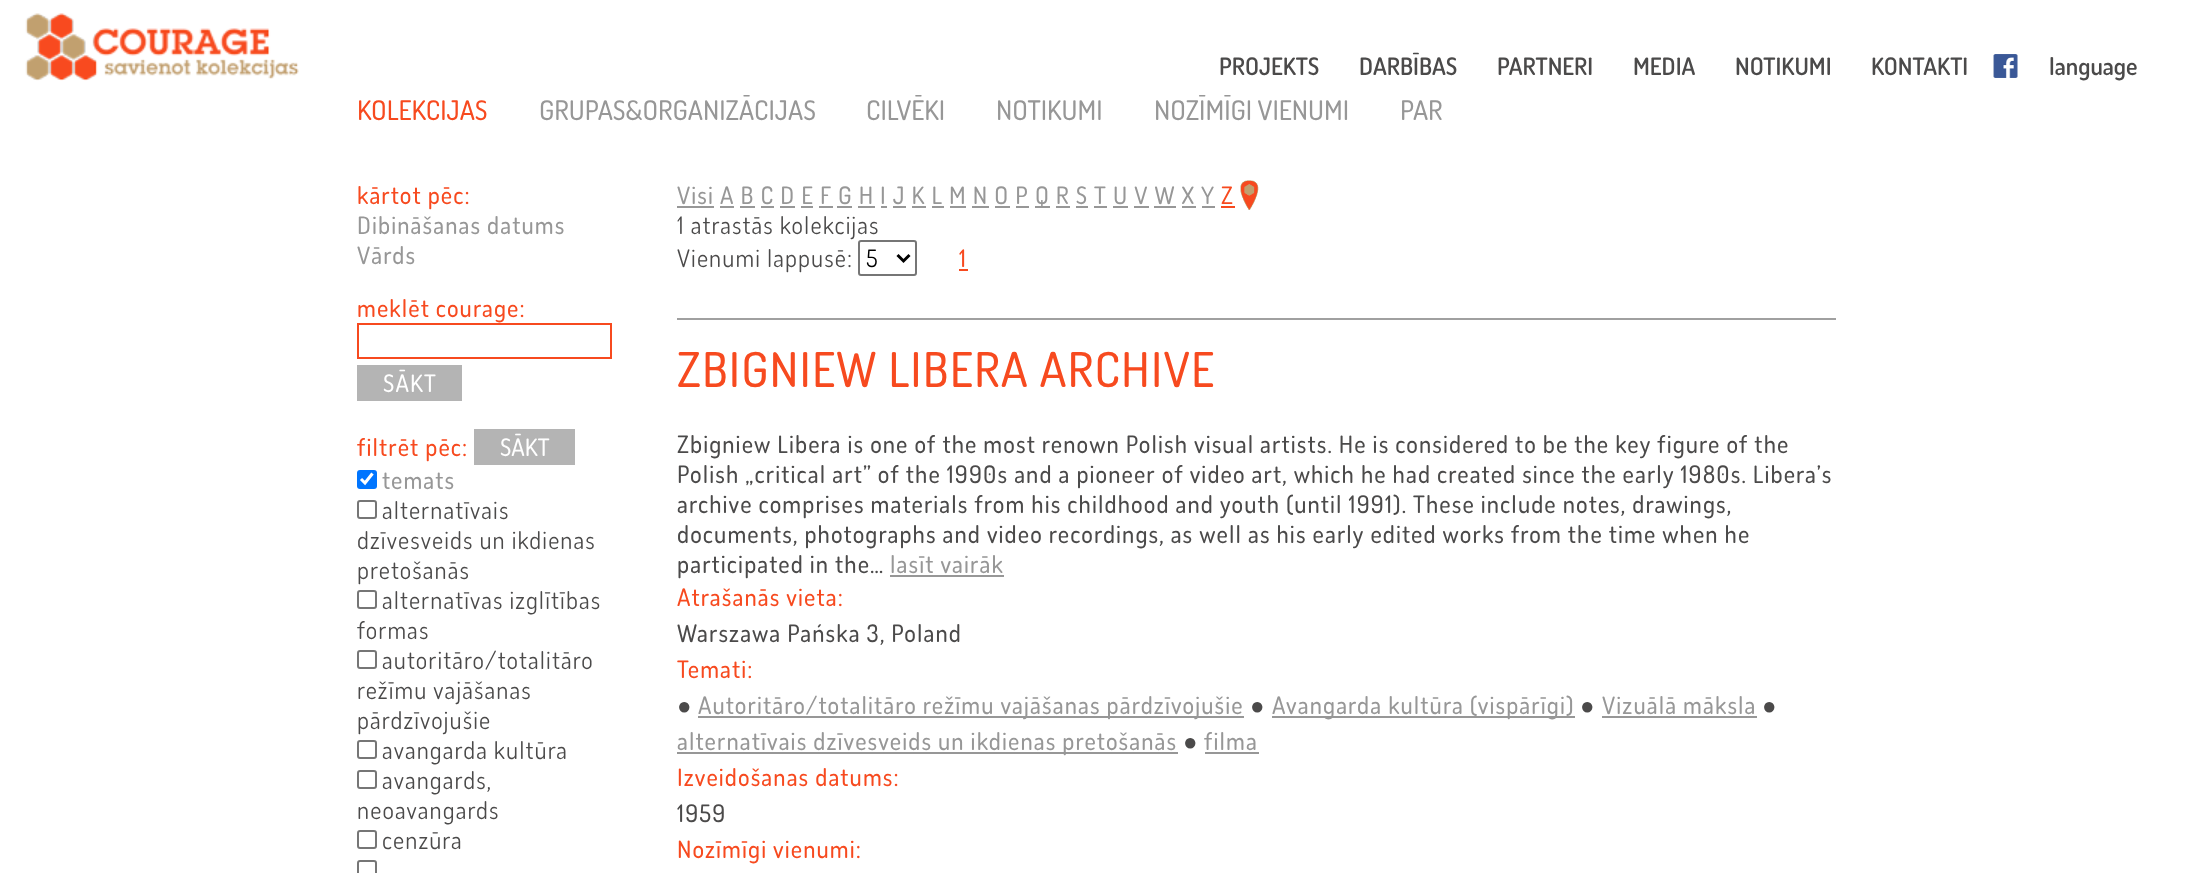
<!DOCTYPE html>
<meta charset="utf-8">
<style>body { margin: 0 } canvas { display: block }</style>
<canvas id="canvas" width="2199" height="873"></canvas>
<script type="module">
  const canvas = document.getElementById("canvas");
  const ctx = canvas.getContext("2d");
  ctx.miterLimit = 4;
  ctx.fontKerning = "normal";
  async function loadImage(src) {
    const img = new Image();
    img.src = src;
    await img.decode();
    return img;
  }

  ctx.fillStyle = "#ffffff";
  ctx.fillRect(0, 0, 2199, 873);
  ctx.drawImage(await loadImage("img1.png"), 25, 13, 274, 68);
  ctx.font = "600 24px 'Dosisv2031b'";
  ctx.fillStyle = "#4b4a4a";
  ctx.fillText("PROJEKTS", 1219, 75);
  ctx.fillText("DARBĪBAS", 1359, 75);
  ctx.fillText("PARTNERI", 1497, 75);
  ctx.fillText("MEDIA", 1633, 75);
  ctx.fillText("NOTIKUMI", 1735, 75);
  ctx.fillText("KONTAKTI", 1871, 75);
  ctx.drawImage(await loadImage("img2.png"), 1993, 54, 25, 24);
  ctx.fillText("language", 2049, 75);
  ctx.font = "500 27px 'Dosisv2031b'";
  ctx.fillStyle = "#f74a1f";
  ctx.fillText("KOLEKCIJAS", 357, 120);
  ctx.fillStyle = "#979797";
  ctx.fillText("GRUPAS&ORGANIZĀCIJAS", 539, 120);
  ctx.fillText("CILVĒKI", 866, 120);
  ctx.fillText("NOTIKUMI", 996, 120);
  ctx.fillText("NOZĪMĪGI VIENUMI", 1154, 120);
  ctx.fillText("PAR", 1400, 120);
  ctx.letterSpacing = "1.12px";
  ctx.font = "500 24px 'Dosisv2031b'";
  ctx.fillStyle = "#f74a1f";
  ctx.fillText("kārtot pēc:", 357, 204);
  ctx.fillStyle = "#979797";
  ctx.fillText("Dibināšanas datums", 357, 234);
  ctx.fillText("Vārds", 357, 264);
  ctx.fillStyle = "#f74a1f";
  ctx.fillText("meklēt courage:", 357, 317);
  ctx.strokeStyle = "#f74a1f";
  ctx.lineWidth = 2;
  ctx.strokeRect(358, 324, 253, 34);
  ctx.fillStyle = "#b4b4b4";
  ctx.fillRect(357, 365, 105, 36);
  ctx.fillStyle = "#ffffff";
  ctx.fillText("SĀKT", 383, 392);
  ctx.fillStyle = "#f74a1f";
  ctx.fillText("filtrēt pēc:", 357, 456);
  ctx.fillStyle = "#b4b4b4";
  ctx.fillRect(474, 429, 101, 36);
  ctx.letterSpacing = "0px";
  ctx.fillStyle = "#ffffff";
  ctx.fillText("SĀKT", 500, 456);
  ctx.fillStyle = "#0075ff";
  ctx.beginPath();
  ctx.roundRect(357, 470, 20, 19, 3);
  ctx.fill();
  ctx.beginPath();
  ctx.moveTo(361, 479);
  ctx.lineTo(365, 483);
  ctx.lineTo(372.5, 473.5);
  ctx.strokeStyle = "#ffffff";
  ctx.lineWidth = 3.1;
  ctx.stroke();
  ctx.letterSpacing = "1.12px";
  ctx.fillStyle = "#979797";
  ctx.fillText("temats", 382, 489);
  ctx.beginPath();
  ctx.roundRect(358, 501, 18, 17, 2);
  ctx.strokeStyle = "#767676";
  ctx.lineWidth = 2;
  ctx.stroke();
  ctx.font = "24px 'Dosisv2031b'";
  ctx.fillStyle = "#4b4a4a";
  ctx.fillText("alternatīvais", 382, 519);
  ctx.fillText("dzīvesveids un ikdienas", 357, 549);
  ctx.fillText("pretošanās", 357, 579);
  ctx.beginPath();
  ctx.roundRect(358, 591, 18, 17, 2);
  ctx.stroke();
  ctx.fillText("alternatīvas izglītības", 382, 609);
  ctx.fillText("formas", 357, 639);
  ctx.beginPath();
  ctx.roundRect(358, 651, 18, 17, 2);
  ctx.stroke();
  ctx.fillText("autoritāro/totalitāro", 382, 669);
  ctx.fillText("režīmu vajāšanas", 357, 699);
  ctx.fillText("pārdzīvojušie", 357, 729);
  ctx.beginPath();
  ctx.roundRect(358, 741, 18, 17, 2);
  ctx.stroke();
  ctx.fillText("avangarda kultūra", 382, 759);
  ctx.beginPath();
  ctx.roundRect(358, 771, 18, 17, 2);
  ctx.stroke();
  ctx.fillText("avangards,", 382, 789);
  ctx.fillText("neoavangards", 357, 819);
  ctx.beginPath();
  ctx.roundRect(358, 831, 18, 17, 2);
  ctx.stroke();
  ctx.fillText("cenzūra", 382, 849);
  ctx.beginPath();
  ctx.roundRect(358, 861, 18, 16, 2);
  ctx.stroke();
  ctx.font = "500 24px 'Dosisv2031b'";
  ctx.fillStyle = "#979797";
  ctx.fillText("Visi A B C D E F G H I J K L M N O P", 677, 204);
  ctx.fillRect(677, 206, 37, 2);
  ctx.fillRect(1035, 206, 15, 2);
  ctx.fillText("Q R S T U V W X Y", 1035, 204);
  ctx.fillStyle = "#f74a1f";
  ctx.fillText("Z", 1221, 204);
  ctx.fillRect(1221, 206, 14, 2);
  ctx.drawImage(await loadImage("img3.png"), 1240, 180, 19, 30);
  ctx.fillStyle = "#979797";
  ctx.fillRect(720, 206, 14, 2);
  ctx.fillRect(740, 206, 15, 2);
  ctx.fillRect(761, 206, 13, 2);
  ctx.fillRect(780, 206, 15, 2);
  ctx.fillRect(801, 206, 12, 2);
  ctx.fillRect(819, 206, 14, 2);
  ctx.fillRect(837, 206, 15, 2);
  ctx.fillRect(858, 206, 17, 2);
  ctx.fillRect(881, 206, 6, 2);
  ctx.fillRect(893, 206, 13, 2);
  ctx.fillRect(912, 206, 14, 2);
  ctx.fillRect(932, 206, 12, 2);
  ctx.fillRect(950, 206, 16, 2);
  ctx.fillRect(972, 206, 17, 2);
  ctx.fillRect(995, 206, 15, 2);
  ctx.fillRect(1016, 206, 13, 2);
  ctx.fillRect(1056, 206, 14, 2);
  ctx.fillRect(1076, 206, 12, 2);
  ctx.fillRect(1094, 206, 13, 2);
  ctx.fillRect(1113, 206, 15, 2);
  ctx.fillRect(1134, 206, 15, 2);
  ctx.fillRect(1154, 206, 22, 2);
  ctx.fillRect(1182, 206, 14, 2);
  ctx.fillRect(1202, 206, 13, 2);
  ctx.font = "24px 'Dosisv2031b'";
  ctx.fillStyle = "#4b4a4a";
  ctx.fillText("1 atrastās kolekcijas", 677, 234);
  ctx.fillText("Vienumi lappusē:", 677, 267);
  ctx.beginPath();
  ctx.roundRect(859, 241, 57, 34, 2);
  ctx.stroke();
  ctx.beginPath();
  ctx.moveTo(897.5, 255);
  ctx.lineTo(903.5, 261);
  ctx.lineTo(909.5, 255);
  ctx.strokeStyle = "#000000";
  ctx.lineWidth = 3;
  ctx.stroke();
  ctx.letterSpacing = "0px";
  ctx.fillStyle = "#000000";
  ctx.fillText("5", 866, 267);
  ctx.letterSpacing = "1.12px";
  ctx.font = "500 24px 'Dosisv2031b'";
  ctx.fillStyle = "#f74a1f";
  ctx.fillText("1", 959, 267);
  ctx.fillRect(959, 269, 9, 2);
  ctx.fillStyle = "#a0a0a0";
  ctx.fillRect(677, 318, 1159, 2);
  ctx.font = "500 48px 'Dosisv2031b'";
  ctx.fillStyle = "#f74a1f";
  ctx.fillText("ZBIGNIEW LIBERA ARCHIVE", 677, 387);
  ctx.font = "500 24px 'Dosisv2031b'";
  ctx.fillStyle = "#4b4a4a";
  ctx.fillText("Zbigniew Libera is one of the most renown Polish visual artists. He is considered to be the key figure of the", 677, 453);
  ctx.fillText("Polish „critical art” of the 1990s and a pioneer of video art, which he had created since the early 1980s. Libera’s", 677, 483);
  ctx.fillText("archive comprises materials from his childhood and youth (until 1991). These include notes, drawings,", 677, 513);
  ctx.fillText("documents, photographs and video recordings, as well as his early edited works from the time when he", 677, 543);
  ctx.fillText("participated in the…", 677, 573);
  ctx.fillStyle = "#979797";
  ctx.fillText("lasīt vairāk", 890, 573);
  ctx.fillRect(890, 575, 114, 2);
  ctx.fillStyle = "#f74a1f";
  ctx.fillText("Atrašanās vieta:", 677, 606);
  ctx.fillStyle = "#4b4a4a";
  ctx.fillText("Warszawa Pańska 3, Poland", 677, 642);
  ctx.fillStyle = "#f74a1f";
  ctx.fillText("Temati:", 677, 678);
  ctx.font = "24px Liberation Sans";
  ctx.fillStyle = "#4b4a4a";
  ctx.fillText("●", 677, 714);
  ctx.fillStyle = "#979797";
  ctx.fillRect(698, 716, 546, 2);
  ctx.font = "500 24px 'Dosisv2031b'";
  ctx.fillText("Autoritāro/totalitāro režīmu vajāšanas pārdzīvojušie", 698, 714);
  ctx.font = "24px Liberation Sans";
  ctx.fillStyle = "#4b4a4a";
  ctx.fillText("●", 1250, 714);
  ctx.fillStyle = "#979797";
  ctx.fillRect(1272, 716, 303, 2);
  ctx.font = "500 24px 'Dosisv2031b'";
  ctx.fillText("Avangarda kultūra (vispārīgi)", 1272, 714);
  ctx.font = "24px Liberation Sans";
  ctx.fillStyle = "#4b4a4a";
  ctx.fillText("●", 1580, 714);
  ctx.font = "500 24px 'Dosisv2031b'";
  ctx.fillStyle = "#979797";
  ctx.fillText("Vizuālā māksla", 1602, 714);
  ctx.fillRect(1602, 716, 155, 2);
  ctx.font = "24px Liberation Sans";
  ctx.fillStyle = "#4b4a4a";
  ctx.fillText("●", 1762, 714);
  ctx.fillStyle = "#979797";
  ctx.fillRect(677, 752, 501, 2);
  ctx.font = "500 24px 'Dosisv2031b'";
  ctx.fillText("alternatīvais dzīvesveids un ikdienas pretošanās", 677, 750);
  ctx.font = "24px Liberation Sans";
  ctx.fillStyle = "#4b4a4a";
  ctx.fillText("●", 1183, 750);
  ctx.font = "500 24px 'Dosisv2031b'";
  ctx.fillStyle = "#979797";
  ctx.fillText("filma", 1204, 750);
  ctx.fillRect(1205, 752, 54, 2);
  ctx.fillStyle = "#f74a1f";
  ctx.fillText("Izveidošanas datums:", 677, 786);
  ctx.fillStyle = "#4b4a4a";
  ctx.fillText("1959", 677, 822);
  ctx.fillStyle = "#f74a1f";
  ctx.fillText("Nozīmīgi vienumi:", 677, 858);
</script>
